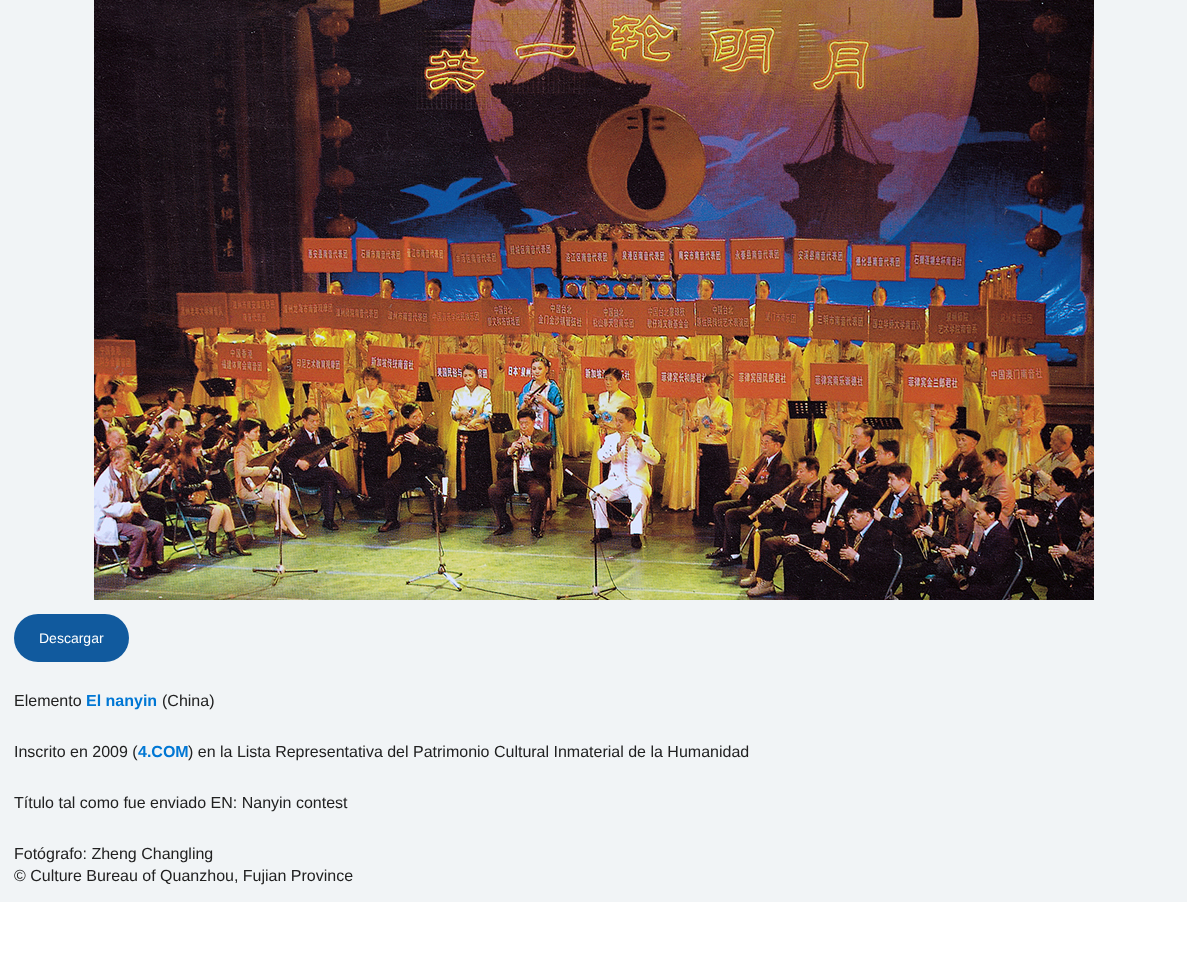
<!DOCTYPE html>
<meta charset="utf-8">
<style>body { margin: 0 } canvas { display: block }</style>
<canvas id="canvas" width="1187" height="967"></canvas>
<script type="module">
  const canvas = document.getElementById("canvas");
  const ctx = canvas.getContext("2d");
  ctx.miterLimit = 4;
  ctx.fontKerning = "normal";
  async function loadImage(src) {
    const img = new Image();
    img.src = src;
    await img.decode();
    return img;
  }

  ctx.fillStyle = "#ffffff";
  ctx.fillRect(0, 0, 1187, 967);
  ctx.fillStyle = "#f1f4f6";
  ctx.fillRect(0, 0, 1187, 902);
  ctx.drawImage(await loadImage("img1.png"), 94, 0, 1000, 600);
  ctx.fillStyle = "#115a9e";
  ctx.beginPath();
  ctx.roundRect(14, 614, 115, 48, 24);
  ctx.fill();
  ctx.font = "14px Liberation Sans";
  ctx.fillStyle = "#ffffff";
  ctx.fillText("Descargar", 39, 643);
  ctx.font = "16px Liberation Sans";
  ctx.fillStyle = "#212121";
  ctx.fillText("Elemento", 14, 706);
  ctx.font = "bold 16px Liberation Sans";
  ctx.fillStyle = "#0077d4";
  ctx.fillText("El nanyin", 86, 706);
  ctx.font = "16px Liberation Sans";
  ctx.fillStyle = "#212121";
  ctx.fillText("(China)", 162, 706);
  ctx.fillText("Inscrito en 2009 (", 14, 757);
  ctx.font = "bold 16px Liberation Sans";
  ctx.fillStyle = "#0077d4";
  ctx.fillText("4.COM", 138, 757);
  ctx.font = "16px Liberation Sans";
  ctx.fillStyle = "#212121";
  ctx.fillText(") en la Lista Representativa del Patrimonio Cultural Inmaterial de la Humanidad", 188, 757);
  ctx.fillText("Título tal como fue enviado EN: Nanyin contest", 14, 808);
  ctx.fillText("Fotógrafo: Zheng Changling", 14, 859);
  ctx.fillText("© Culture Bureau of Quanzhou, Fujian Province", 14, 881);
</script>
